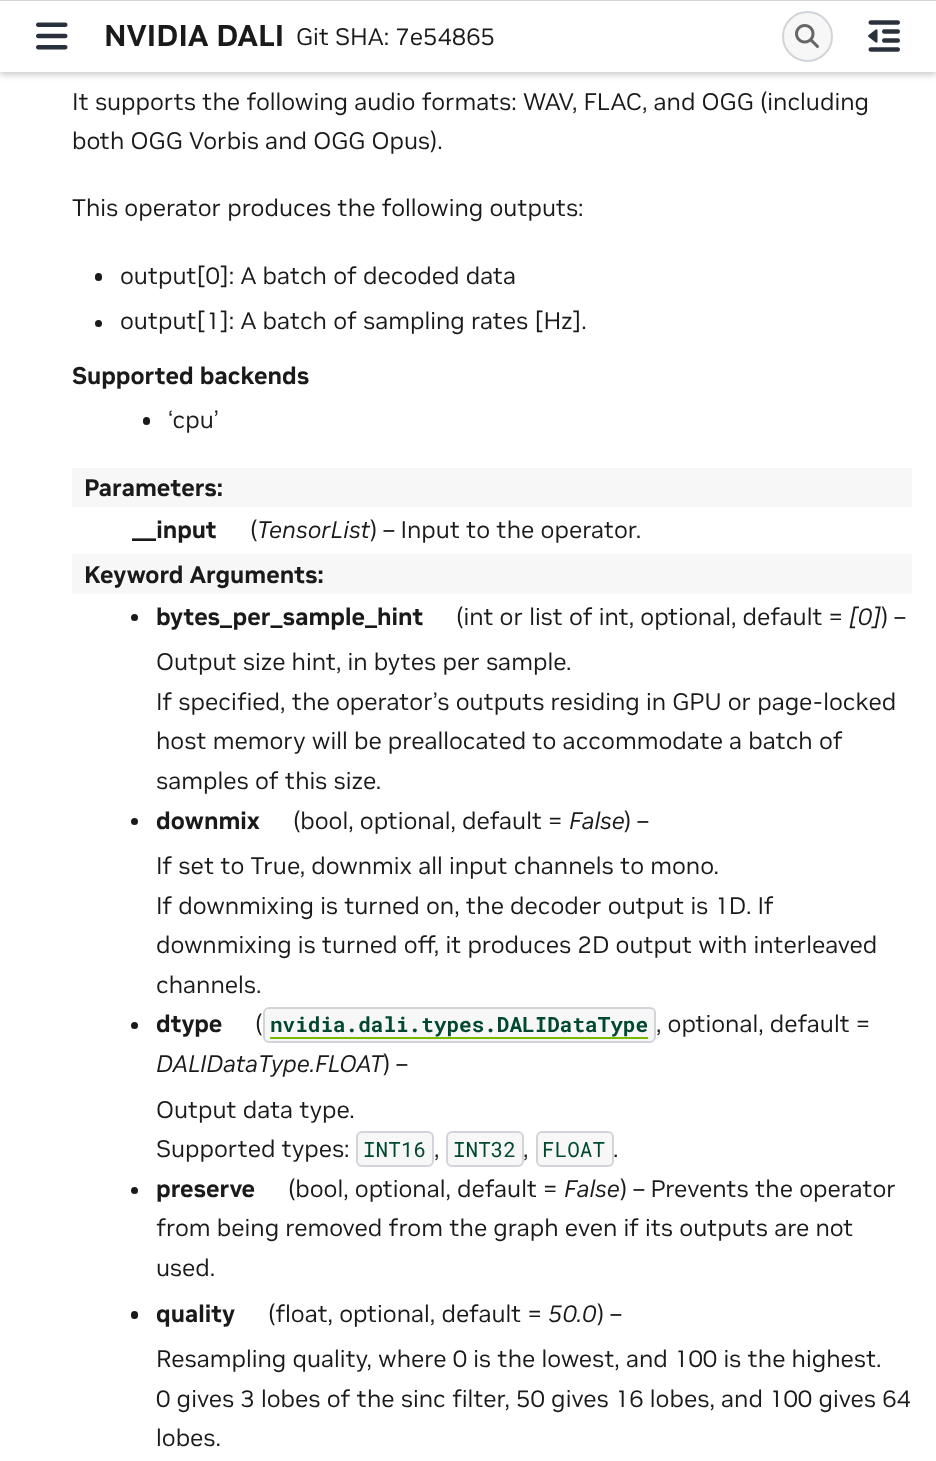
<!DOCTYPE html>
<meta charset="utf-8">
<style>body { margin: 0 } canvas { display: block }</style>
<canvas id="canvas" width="936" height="1461"></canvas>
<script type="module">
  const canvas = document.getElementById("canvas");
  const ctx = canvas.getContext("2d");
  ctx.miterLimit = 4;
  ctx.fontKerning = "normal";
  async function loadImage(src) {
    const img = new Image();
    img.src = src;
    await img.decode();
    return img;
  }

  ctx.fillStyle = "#ffffff";
  ctx.fillRect(0, 0, 936, 1461);
  ctx.fillStyle = "#cccccc";
  ctx.filter = "blur(3px)";
  ctx.beginPath();
  ctx.rect(0, 3, 936, 72);
  ctx.fill();
  ctx.filter = "none";
  ctx.fillStyle = "#d1d5da";
  ctx.fillRect(0, 0, 936, 1);
  ctx.fillStyle = "#ffffff";
  ctx.fillRect(0, 1, 936, 71);
  ctx.drawImage(await loadImage("img1.png"), 36, 22, 32, 28);
  ctx.font = "bold 30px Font";
  ctx.fillStyle = "#1a1a1a";
  ctx.fillText("NVIDIA DALI", 104, 46);
  ctx.font = "24px Font";
  ctx.fillText("Git SHA: 7e54865", 296, 45);
  ctx.fillStyle = "#f7f7f7";
  ctx.beginPath();
  ctx.arc(807.5, 36.5, 24.5, 0, Math.PI * 2);
  ctx.fill();
  ctx.strokeStyle = "#d1d5da";
  ctx.lineWidth = 2;
  ctx.stroke();
  ctx.drawImage(await loadImage("img2.png"), 795, 24, 24, 24);
  ctx.drawImage(await loadImage("img3.png"), 868, 20, 32, 32);
  ctx.fillStyle = "#1a1a1a";
  ctx.fillText("It supports the following audio formats: WAV, FLAC, and OGG (including", 72, 110);
  ctx.fillText("both OGG Vorbis and OGG Opus).", 72, 149);
  ctx.fillText("This operator produces the following outputs:", 72, 216);
  ctx.beginPath();
  ctx.roundRect(95, 273, 7, 8, 3.5);
  ctx.fill();
  ctx.fillText("output[0]: A batch of decoded data", 120, 284);
  ctx.beginPath();
  ctx.arc(98.5, 323.5, 3.5, 0, Math.PI * 2);
  ctx.fill();
  ctx.fillText("output[1]: A batch of sampling rates [Hz].", 120, 329);
  ctx.font = "bold 24px Font";
  ctx.fillText("Supported backends", 72, 384);
  ctx.beginPath();
  ctx.roundRect(143, 417, 7, 8, 3.5);
  ctx.fill();
  ctx.font = "24px Font";
  ctx.fillText("‘cpu’", 168, 428);
  ctx.fillStyle = "#f7f7f7";
  ctx.fillRect(72, 468, 840, 39);
  ctx.font = "bold 24px Font";
  ctx.fillStyle = "#1a1a1a";
  ctx.fillText("Parameters:", 84, 496);
  ctx.fillText("__input", 132, 538);
  ctx.font = "24px Font";
  ctx.fillText("(", 250, 538);
  ctx.font = "italic 24px Font";
  ctx.fillText("TensorList", 257, 538);
  ctx.font = "24px Font";
  ctx.fillText(") – Input to the operator.", 370, 538);
  ctx.fillStyle = "#f7f7f7";
  ctx.fillRect(72, 554, 840, 40);
  ctx.font = "bold 24px Font";
  ctx.fillStyle = "#1a1a1a";
  ctx.fillText("Keyword Arguments:", 84, 583);
  ctx.beginPath();
  ctx.arc(134.5, 617.5, 3.5, 0, Math.PI * 2);
  ctx.fill();
  ctx.fillText("bytes_per_sample_hint", 156, 625);
  ctx.font = "24px Font";
  ctx.fillText("(int or list of int, optional, default =", 456, 625);
  ctx.font = "italic 24px Font";
  ctx.fillText("[0]", 849, 625);
  ctx.font = "24px Font";
  ctx.fillText(") –", 881, 625);
  ctx.fillText("Output size hint, in bytes per sample.", 156, 670);
  ctx.fillText("If specified, the operator’s outputs residing in GPU or page-locked", 156, 710);
  ctx.fillText("host memory will be preallocated to accommodate a batch of", 156, 749);
  ctx.fillText("samples of this size.", 156, 789);
  ctx.beginPath();
  ctx.arc(134.5, 821.5, 3.5, 0, Math.PI * 2);
  ctx.fill();
  ctx.font = "bold 24px Font";
  ctx.fillText("downmix", 156, 829);
  ctx.font = "24px Font";
  ctx.fillText("(bool, optional, default =", 293, 829);
  ctx.font = "italic 24px Font";
  ctx.fillText("False", 569, 829);
  ctx.font = "24px Font";
  ctx.fillText(") –", 624, 829);
  ctx.fillText("If set to True, downmix all input channels to mono.", 156, 874);
  ctx.fillText("If downmixing is turned on, the decoder output is 1D. If", 156, 914);
  ctx.fillText("downmixing is turned off, it produces 2D output with interleaved", 156, 953);
  ctx.fillText("channels.", 156, 993);
  ctx.beginPath();
  ctx.arc(134.5, 1025.5, 3.5, 0, Math.PI * 2);
  ctx.fill();
  ctx.font = "bold 24px Font";
  ctx.fillText("dtype", 156, 1032);
  ctx.font = "24px Font";
  ctx.fillText("(", 255, 1032);
  ctx.fillStyle = "#f7f7f7";
  ctx.beginPath();
  ctx.roundRect(264, 1008, 391, 34, 5);
  ctx.fill();
  ctx.stroke();
  ctx.font = "bold 21px Roboto Mono";
  ctx.fillStyle = "#004831";
  ctx.fillText("nvidia.dali.types.DALIDataType", 270, 1032);
  ctx.fillStyle = "#76b900";
  ctx.fillRect(270, 1037, 378, 2);
  ctx.font = "24px Font";
  ctx.fillStyle = "#1a1a1a";
  ctx.fillText(", optional, default =", 656, 1032);
  ctx.font = "italic 24px Font";
  ctx.fillText("DALIDataType.FLOAT", 156, 1072);
  ctx.font = "24px Font";
  ctx.fillText(") –", 383, 1072);
  ctx.fillText("Output data type.", 156, 1118);
  ctx.fillText("Supported types:", 156, 1157);
  ctx.fillStyle = "#f7f7f7";
  ctx.beginPath();
  ctx.roundRect(357, 1132, 76, 34, 5);
  ctx.fill();
  ctx.stroke();
  ctx.font = "21px Roboto Mono";
  ctx.fillStyle = "#004831";
  ctx.fillText("INT16", 363, 1157);
  ctx.font = "24px Font";
  ctx.fillStyle = "#1a1a1a";
  ctx.fillText(",", 434, 1157);
  ctx.fillStyle = "#f7f7f7";
  ctx.beginPath();
  ctx.roundRect(447, 1132, 76, 34, 5);
  ctx.fill();
  ctx.stroke();
  ctx.font = "21px Roboto Mono";
  ctx.fillStyle = "#004831";
  ctx.fillText("INT32", 453, 1157);
  ctx.font = "24px Font";
  ctx.fillStyle = "#1a1a1a";
  ctx.fillText(",", 523, 1157);
  ctx.fillStyle = "#f7f7f7";
  ctx.beginPath();
  ctx.roundRect(537, 1132, 76, 34, 5);
  ctx.fill();
  ctx.stroke();
  ctx.font = "21px Roboto Mono";
  ctx.fillStyle = "#004831";
  ctx.fillText("FLOAT", 542, 1157);
  ctx.font = "24px Font";
  ctx.fillStyle = "#1a1a1a";
  ctx.fillText(".", 613, 1157);
  ctx.beginPath();
  ctx.arc(134.5, 1190.5, 3.5, 0, Math.PI * 2);
  ctx.fill();
  ctx.font = "bold 24px Font";
  ctx.fillText("preserve", 156, 1197);
  ctx.font = "24px Font";
  ctx.fillText("(bool, optional, default =", 288, 1197);
  ctx.font = "italic 24px Font";
  ctx.fillText("False", 564, 1197);
  ctx.font = "24px Font";
  ctx.fillText(") – Prevents the operator", 620, 1197);
  ctx.fillText("from being removed from the graph even if its outputs are not", 156, 1236);
  ctx.fillText("used.", 156, 1276);
  ctx.beginPath();
  ctx.roundRect(131, 1311, 7, 8, 3.5);
  ctx.fill();
  ctx.font = "bold 24px Font";
  ctx.fillText("quality", 156, 1322);
  ctx.font = "24px Font";
  ctx.fillText("(float, optional, default =", 268, 1322);
  ctx.font = "italic 24px Font";
  ctx.fillText("50.0", 548, 1322);
  ctx.font = "24px Font";
  ctx.fillText(") –", 597, 1322);
  ctx.fillText("Resampling quality, where 0 is the lowest, and 100 is the highest.", 156, 1367);
  ctx.fillText("0 gives 3 lobes of the sinc filter, 50 gives 16 lobes, and 100 gives 64", 156, 1407);
  ctx.fillText("lobes.", 156, 1446);
</script>
